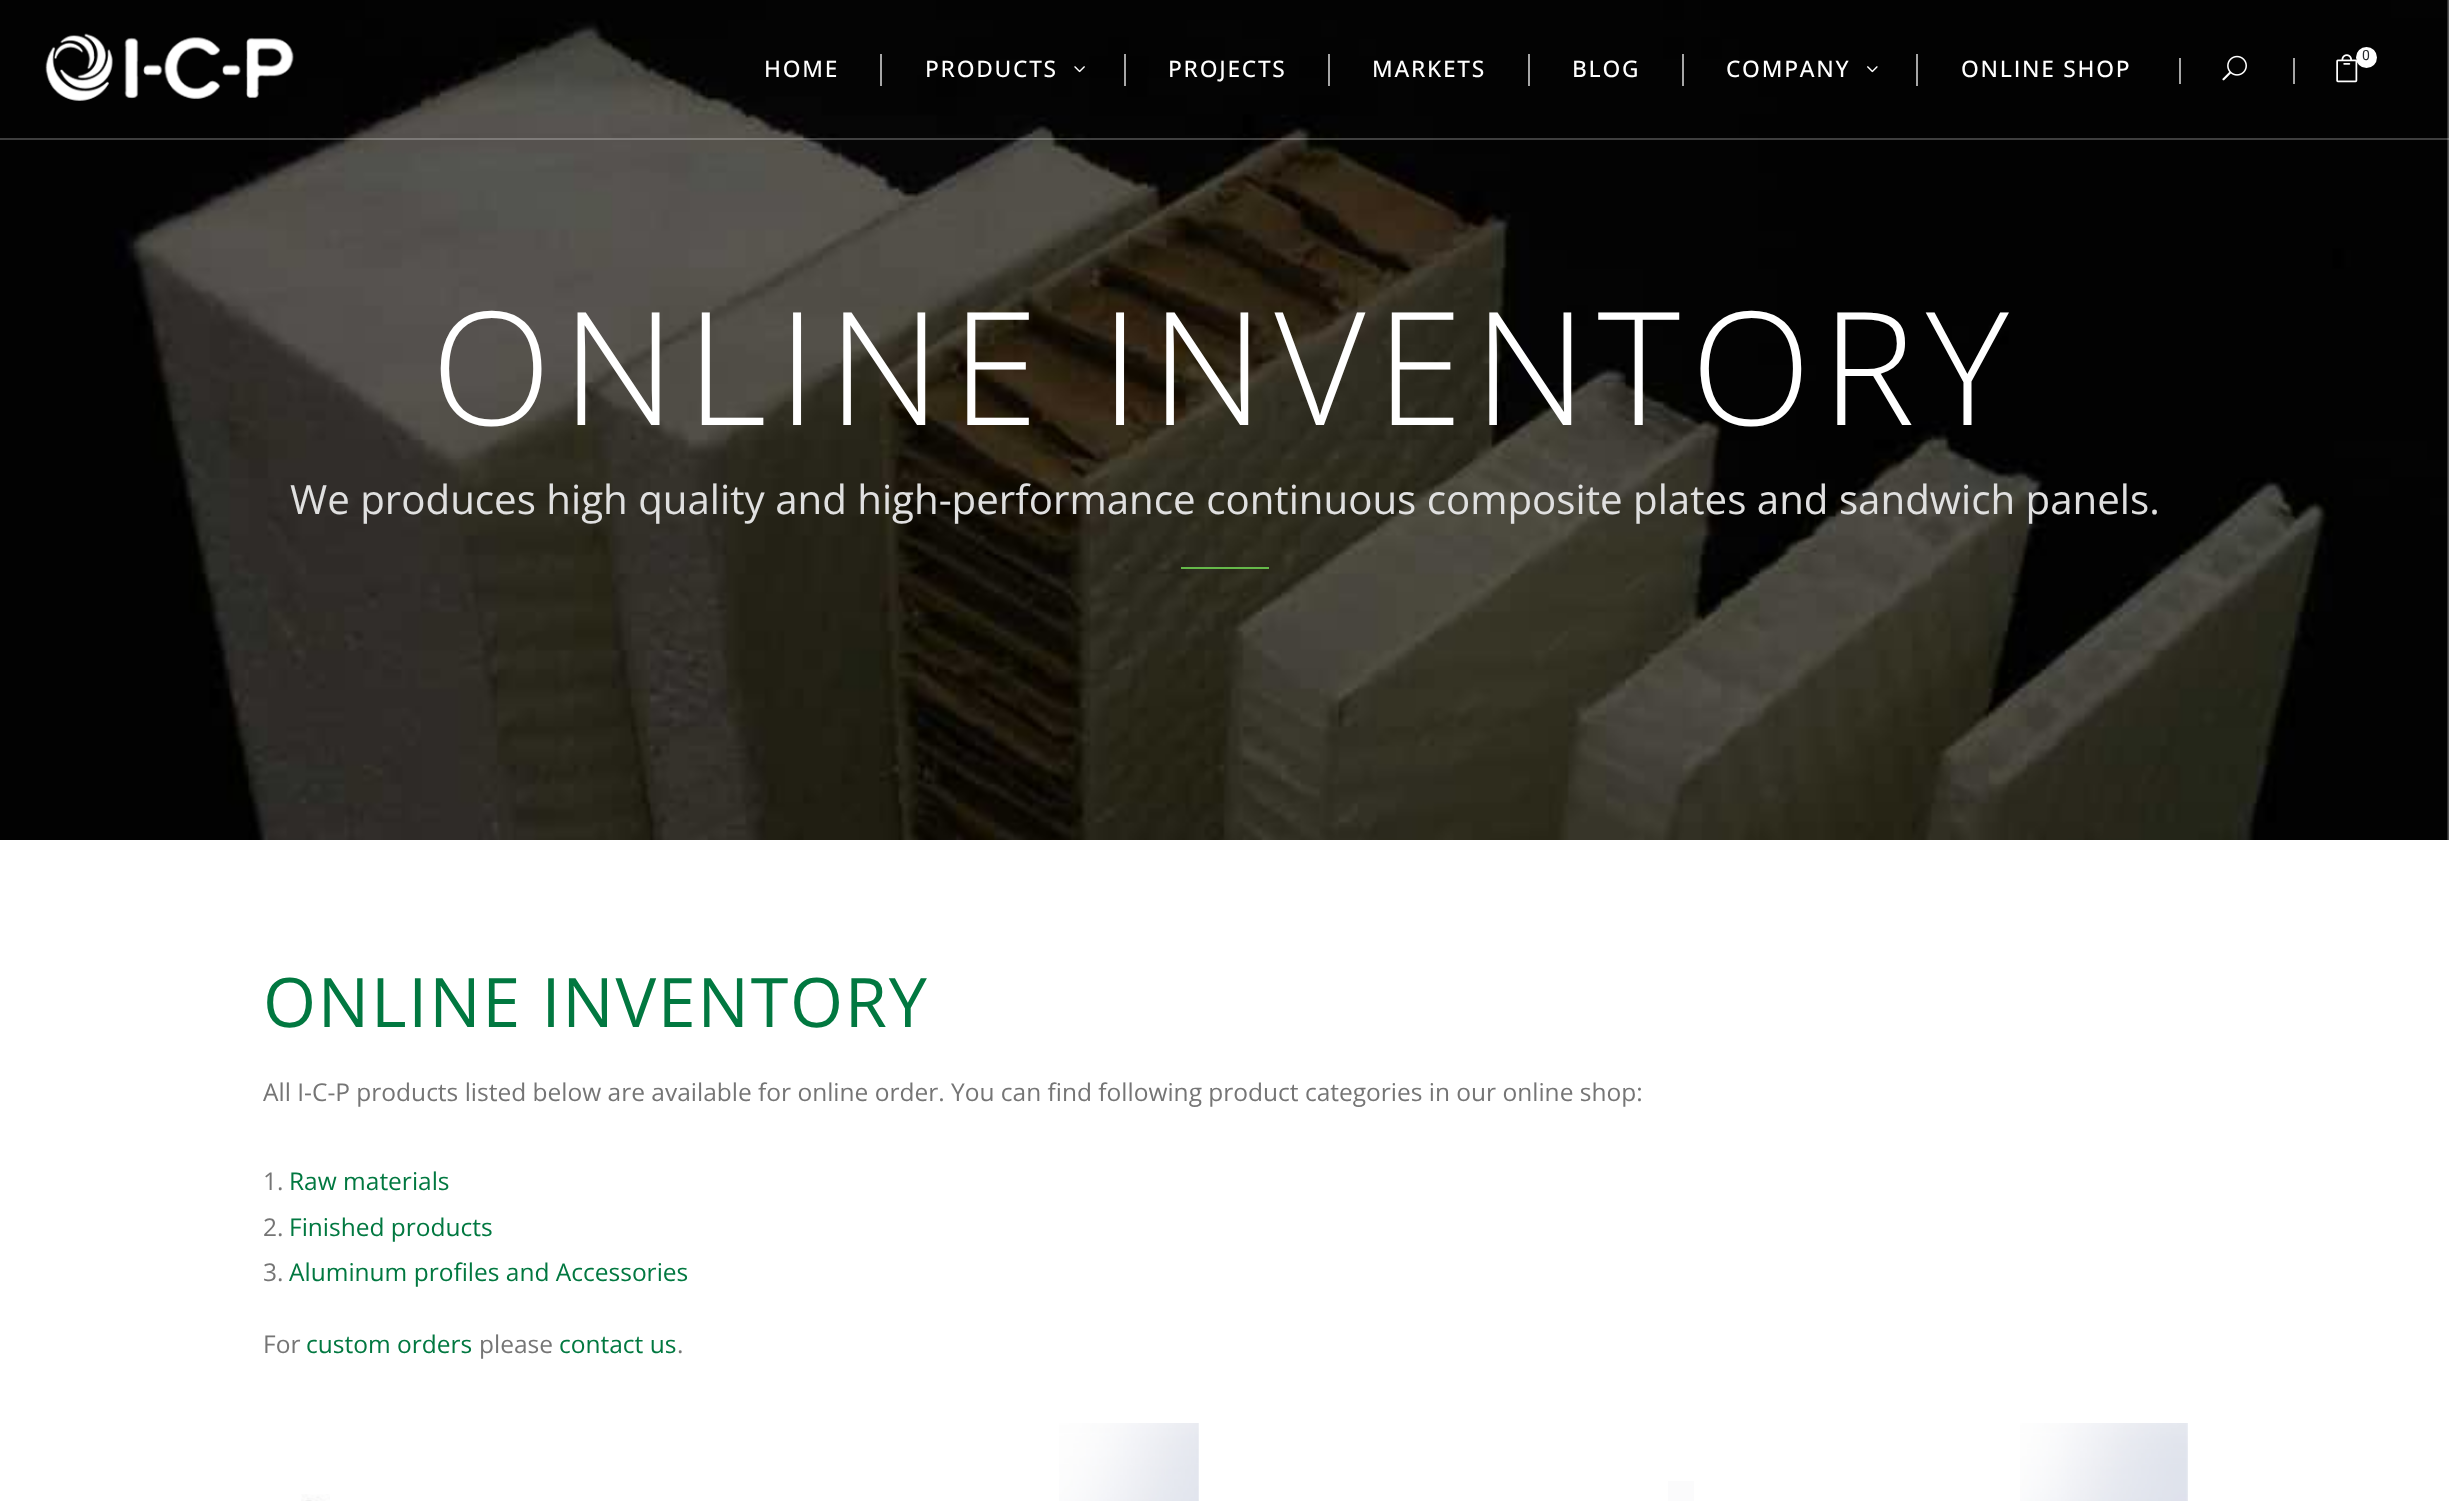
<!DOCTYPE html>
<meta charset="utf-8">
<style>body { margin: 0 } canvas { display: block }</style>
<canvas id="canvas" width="2449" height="1501"></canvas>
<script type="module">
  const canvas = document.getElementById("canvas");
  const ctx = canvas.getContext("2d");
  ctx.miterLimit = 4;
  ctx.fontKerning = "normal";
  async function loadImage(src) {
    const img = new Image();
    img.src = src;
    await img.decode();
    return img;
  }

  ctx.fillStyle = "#ffffff";
  ctx.fillRect(0, 0, 2449, 1501);
  ctx.drawImage(await loadImage("img6.png"), 0, 0, 2449, 840);
  ctx.fillStyle = "rgba(255, 255, 255, 0.24)";
  ctx.fillRect(0, 138, 2449, 2);
  ctx.drawImage(await loadImage("img1.png"), 45, 33, 249, 68);
  ctx.letterSpacing = "1.75px";
  ctx.font = "500 22.75px Open Sans";
  ctx.fillStyle = "#ffffff";
  ctx.fillText("HOME", 764, 77);
  ctx.fillStyle = "#a7a7a7";
  ctx.fillRect(880, 54, 2, 32);
  ctx.fillStyle = "#ffffff";
  ctx.fillText("PRODUCTS", 925, 77);
  ctx.drawImage(await loadImage("img2.png"), 1074, 66, 11, 7);
  ctx.fillStyle = "#a7a7a7";
  ctx.fillRect(1124, 54, 2, 32);
  ctx.fillStyle = "#ffffff";
  ctx.fillText("PROJECTS", 1168, 77);
  ctx.fillStyle = "#a7a7a7";
  ctx.fillRect(1328, 54, 2, 32);
  ctx.fillStyle = "#ffffff";
  ctx.fillText("MARKETS", 1372, 77);
  ctx.fillStyle = "#a7a7a7";
  ctx.fillRect(1528, 54, 2, 32);
  ctx.fillStyle = "#ffffff";
  ctx.fillText("BLOG", 1572, 77);
  ctx.fillStyle = "#a7a7a7";
  ctx.fillRect(1682, 54, 2, 32);
  ctx.fillStyle = "#ffffff";
  ctx.fillText("COMPANY", 1726, 77);
  ctx.drawImage(await loadImage("img3.png"), 1867, 66, 11, 7);
  ctx.fillStyle = "#a6a6a6";
  ctx.fillRect(1916, 54, 2, 32);
  ctx.fillStyle = "#ffffff";
  ctx.fillText("ONLINE SHOP", 1961, 77);
  ctx.fillStyle = "#a6a6a6";
  ctx.fillRect(2179, 58, 2, 26);
  ctx.drawImage(await loadImage("img4.png"), 2222, 55, 25, 26);
  ctx.fillRect(2293, 58, 2, 26);
  ctx.drawImage(await loadImage("img5.png"), 2336, 54, 22, 29);
  ctx.fillStyle = "#ffffff";
  ctx.beginPath();
  ctx.arc(2366.5, 57.5, 10.5, 0, Math.PI * 2);
  ctx.fill();
  ctx.letterSpacing = "0px";
  ctx.font = "14px Roboto";
  ctx.fillStyle = "#252a2c";
  ctx.fillText("0", 2362, 60);
  ctx.letterSpacing = "10.5px";
  ctx.font = "300 157.5px Open Sans";
  ctx.fillStyle = "#ffffff";
  ctx.fillText("ONLINE INVENTORY", 431, 425);
  ctx.letterSpacing = "0px";
  ctx.font = "40.25px Open Sans";
  ctx.fillStyle = "#e0e0e0";
  ctx.fillText("We produces high quality and high-performance continuous composite plates and sandwich panels.", 290, 514);
  ctx.fillStyle = "#65b949";
  ctx.fillRect(1181, 567, 88, 2);
  ctx.letterSpacing = "1.75px";
  ctx.font = "68.25px Open Sans";
  ctx.fillStyle = "#017840";
  ctx.fillText("ONLINE INVENTORY", 263, 1027);
  ctx.letterSpacing = "0px";
  ctx.font = "24.5px Open Sans";
  ctx.fillStyle = "#757575";
  ctx.fillText("All I-C-P products listed below are available for online order. You can find following product categories in our online shop:", 263, 1101);
  ctx.fillText("1.", 263, 1190);
  ctx.fillStyle = "#017840";
  ctx.fillText("Raw materials", 289, 1190);
  ctx.fillStyle = "#757575";
  ctx.fillText("2.", 263, 1236);
  ctx.fillStyle = "#017840";
  ctx.fillText("Finished products", 289, 1236);
  ctx.fillStyle = "#757575";
  ctx.fillText("3.", 263, 1281);
  ctx.fillStyle = "#017840";
  ctx.fillText("Aluminum profiles and Accessories", 289, 1281);
  ctx.fillStyle = "#757575";
  ctx.fillText("For", 263, 1353);
  ctx.fillStyle = "#017840";
  ctx.fillText("custom orders", 306, 1353);
  ctx.fillStyle = "#757575";
  ctx.fillText("please", 479, 1353);
  ctx.fillStyle = "#017840";
  ctx.fillText("contact us", 559, 1353);
  ctx.fillStyle = "#757575";
  ctx.fillText(".", 677, 1353);
  ctx.drawImage(await loadImage("img7.png"), 301, 1494, 29, 7);
  ctx.drawImage(await loadImage("img8.png"), 1059, 1423, 140, 78);
  ctx.fillStyle = "#fbfbfc";
  ctx.fillRect(1668, 1481, 26, 20);
  ctx.drawImage(await loadImage("img9.png"), 2020, 1423, 168, 78);
</script>
